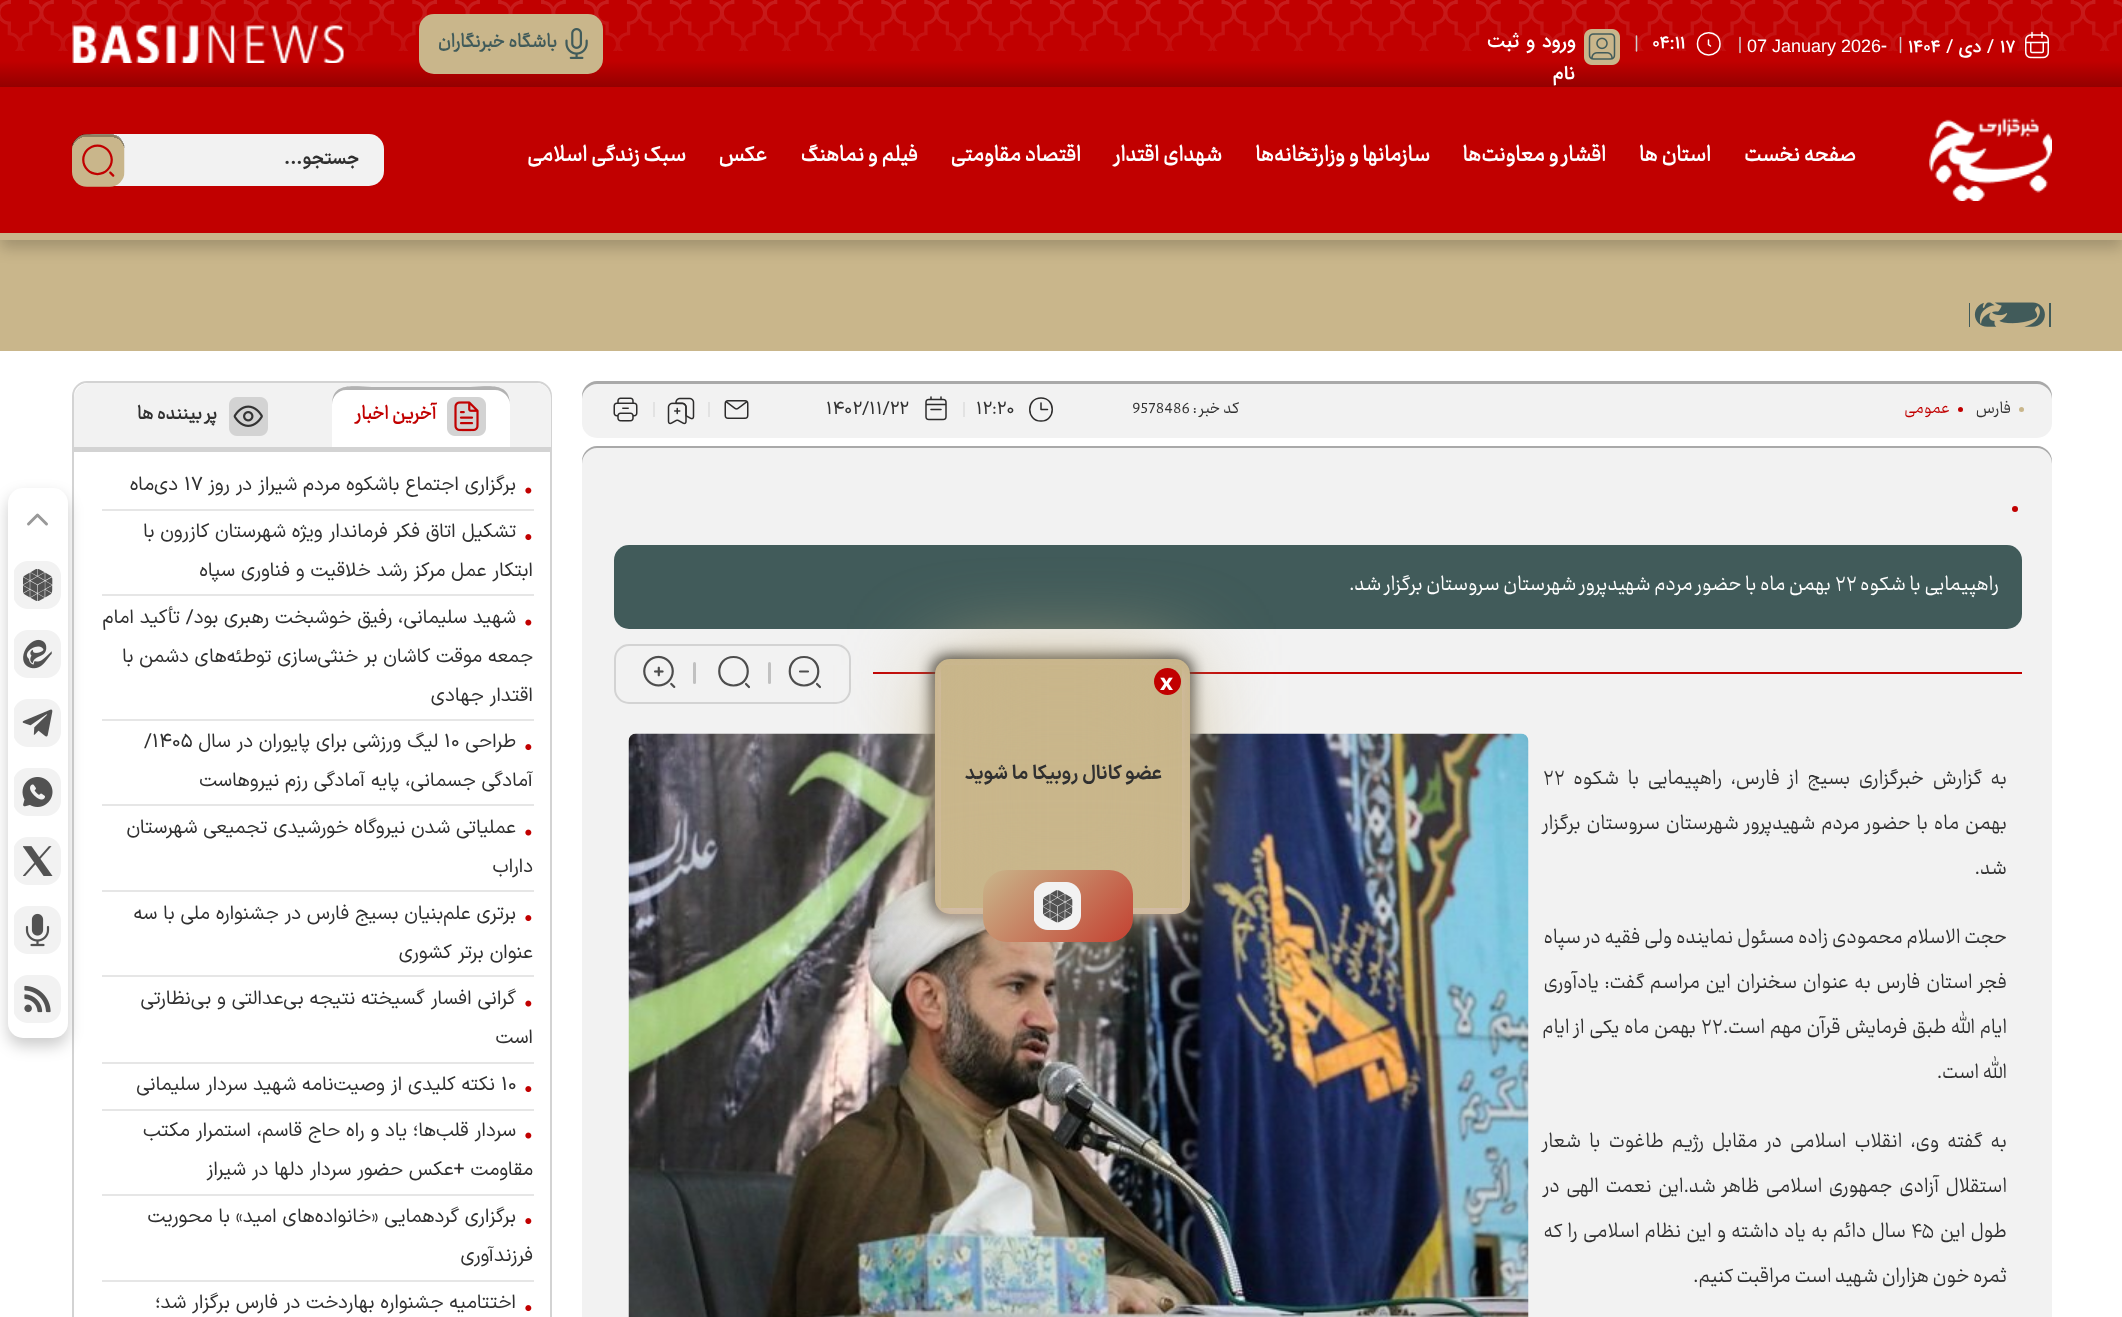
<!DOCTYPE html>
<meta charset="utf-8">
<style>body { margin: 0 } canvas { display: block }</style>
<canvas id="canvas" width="2122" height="1317"></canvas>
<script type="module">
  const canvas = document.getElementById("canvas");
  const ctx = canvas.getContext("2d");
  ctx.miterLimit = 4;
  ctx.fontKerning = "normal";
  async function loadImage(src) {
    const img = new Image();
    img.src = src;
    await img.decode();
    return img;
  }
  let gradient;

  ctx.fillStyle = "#ffffff";
  ctx.fillRect(0, 0, 2122, 1317);
  ctx.fillStyle = "#c9b68b";
  ctx.fillRect(0, 240, 2122, 111);
  ctx.fillStyle = "rgba(0, 0, 0, 0.2)";
  ctx.filter = "blur(7.5px)";
  ctx.beginPath();
  ctx.rect(0, 95, 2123, 153);
  ctx.fill();
  ctx.filter = "none";
  gradient = ctx.createLinearGradient(1061, 0, 1061, 87);
  gradient.addColorStop(0, "#c10000");
  gradient.addColorStop(0.7, "#c10000");
  gradient.addColorStop(1, "#940000");
  ctx.fillStyle = gradient;
  ctx.fillRect(0, 0, 2122, 87);
  ctx.drawImage(await loadImage("img2.png"), 2025, 31, 24, 28);
  ctx.font = "500 18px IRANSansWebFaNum";
  ctx.fillStyle = "#ffffff";
  ctx.fillText("۱۷", 2000, 52);
  ctx.direction = "rtl";
  ctx.fillText("/ دی /", 1994, 52);
  ctx.direction = "ltr";
  ctx.fillText("۱۴۰۴", 1908, 52);
  ctx.beginPath();
  ctx.moveTo(1900.5, 37.5);
  ctx.lineTo(1900.5, 52.5);
  ctx.strokeStyle = "#cccccc";
  ctx.lineWidth = 1.5;
  ctx.lineCap = "round";
  ctx.stroke();
  ctx.fillText("-", 1881, 52);
  ctx.font = "18px Liberation Sans";
  ctx.fillText("07 January 2026", 1747, 52);
  ctx.beginPath();
  ctx.moveTo(1740, 37.5);
  ctx.lineTo(1740, 52.5);
  ctx.stroke();
  ctx.beginPath();
  ctx.moveTo(1708.5, 40);
  ctx.lineTo(1708.5, 44.5);
  ctx.lineTo(1710.5, 46);
  ctx.moveTo(1720, 44);
  ctx.bezierCurveTo(1720, 58.5, 1697.5, 58.5, 1697.5, 44);
  ctx.bezierCurveTo(1697.5, 29, 1720, 29, 1720, 44);
  ctx.closePath();
  ctx.strokeStyle = "#ffffff";
  ctx.stroke();
  ctx.font = "500 18px IRANSansWebFaNum";
  ctx.fillText("04:11", 1652, 48);
  ctx.beginPath();
  ctx.moveTo(1636.5, 36);
  ctx.lineTo(1636.5, 51);
  ctx.strokeStyle = "#cccccc";
  ctx.stroke();
  ctx.drawImage(await loadImage("img5.png"), 72, 24, 272, 39);
  ctx.drawImage(await loadImage("img1.png"), 0, 0, 2122, 51);
  ctx.drawImage(await loadImage("img3.png"), 1584, 29, 36, 36);
  ctx.letterSpacing = "-0.25px";
  ctx.wordSpacing = "1px";
  ctx.direction = "rtl";
  ctx.font = "500 19.5px IRANSansWebFaNum";
  ctx.fillText("ورود و ثبت", 1576, 47);
  ctx.wordSpacing = "0px";
  ctx.fillText("نام", 1575, 79);
  ctx.fillStyle = "#c9b68b";
  ctx.beginPath();
  ctx.roundRect(419, 14, 184, 60, 15);
  ctx.fill();
  ctx.drawImage(await loadImage("img4.png"), 565, 28, 23, 31);
  ctx.letterSpacing = "0px";
  ctx.font = "bold 21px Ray";
  ctx.fillStyle = "#415b5a";
  ctx.fillText("باشگاه خبرنگاران", 557, 47);
  ctx.fillStyle = "#c10000";
  ctx.fillRect(0, 87, 2122, 146);
  ctx.fillStyle = "#c9b68b";
  ctx.fillRect(0, 233, 2122, 7);
  ctx.drawImage(await loadImage("img6.png"), 1929, 118, 123, 83);
  ctx.font = "bold 24px Ray";
  ctx.fillStyle = "#ffffff";
  ctx.fillText("صفحه نخست", 1856, 161);
  ctx.fillText("استان ها", 1711, 161);
  ctx.fillText("اقشار و معاونت‌ها", 1606, 161);
  ctx.fillText("سازمانها و وزارتخانه‌ها", 1430, 161);
  ctx.fillText("شهدای اقتدار", 1222, 161);
  ctx.fillText("اقتصاد مقاومتی", 1081, 161);
  ctx.fillText("فیلم و نماهنگ", 918, 161);
  ctx.fillText("عکس", 767, 161);
  ctx.fillText("سبک زندگی اسلامی", 686, 161);
  ctx.fillStyle = "#f2f2f2";
  ctx.beginPath();
  ctx.roundRect(80, 134, 304, 52, 15);
  ctx.fill();
  ctx.font = "bold 18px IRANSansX";
  ctx.fillStyle = "#303030";
  ctx.fillText("جستجو...", 359, 164);
  ctx.drawImage(await loadImage("img7.png"), 72, 134, 53, 53);
  ctx.drawImage(await loadImage("img8.png"), 1969, 302, 82, 25);
  ctx.fillStyle = "#f2f2f2";
  ctx.beginPath();
  ctx.roundRect(582, 381, 1470, 57, 15);
  ctx.fill();
  ctx.fillStyle = "rgba(0, 0, 0, 0.3)";
  ctx.beginPath();
  ctx.moveTo(597, 384);
  ctx.lineTo(2037, 384);
  ctx.bezierCurveTo(2045, 384, 2052, 391, 2052, 399);
  ctx.lineTo(2052, 396);
  ctx.bezierCurveTo(2052, 388, 2045, 381, 2037, 381);
  ctx.lineTo(597, 381);
  ctx.bezierCurveTo(589, 381, 582, 388, 582, 396);
  ctx.lineTo(582, 399);
  ctx.bezierCurveTo(582, 391, 589, 384, 597, 384);
  ctx.closePath();
  ctx.fill();
  ctx.fillStyle = "#c9b68b";
  ctx.beginPath();
  ctx.arc(2021.5, 409.5, 2.5, 0, Math.PI * 2);
  ctx.fill();
  ctx.font = "18px Ray";
  ctx.fillStyle = "#303030";
  ctx.fillText("فارس", 2011, 413);
  ctx.fillStyle = "#c10000";
  ctx.beginPath();
  ctx.arc(1960.5, 409.5, 2.5, 0, Math.PI * 2);
  ctx.fill();
  ctx.fillText("عمومی", 1950, 413);
  ctx.fillStyle = "#303030";
  ctx.fillText("کد خبر :", 1239, 413);
  ctx.direction = "ltr";
  ctx.fillText("9578486", 1132, 413);
  ctx.beginPath();
  ctx.moveTo(1041, 403);
  ctx.lineTo(1041, 409.5);
  ctx.lineTo(1047.5, 409.5);
  ctx.moveTo(1041, 421);
  ctx.bezierCurveTo(1026, 421, 1026, 398, 1041, 398);
  ctx.bezierCurveTo(1056, 398, 1056, 421, 1041, 421);
  ctx.closePath();
  ctx.strokeStyle = "#2d2c2c";
  ctx.lineJoin = "round";
  ctx.stroke();
  ctx.font = "18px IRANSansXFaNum";
  ctx.fillText("۱۲:۲۰", 976, 414);
  ctx.fillStyle = "#e2e2e2";
  ctx.fillRect(963, 402, 2, 15);
  ctx.drawImage(await loadImage("img9.png"), 925, 396, 22, 25);
  ctx.fillStyle = "#303030";
  ctx.fillText("۱۴۰۲/۱۱/۲۲", 826, 414);
  ctx.drawImage(await loadImage("img10.png"), 724, 400, 25, 19);
  ctx.fillStyle = "#e2e2e2";
  ctx.fillRect(708, 402, 2, 15);
  ctx.drawImage(await loadImage("img11.png"), 667, 397, 28, 28);
  ctx.fillRect(653, 402, 2, 15);
  ctx.drawImage(await loadImage("img12.png"), 613, 397, 25, 25);
  ctx.fillStyle = "#f2f2f2";
  ctx.beginPath();
  ctx.roundRect(582, 446, 1470, 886, 15);
  ctx.fill();
  ctx.fillStyle = "rgba(0, 0, 0, 0.3)";
  ctx.beginPath();
  ctx.moveTo(597, 448);
  ctx.lineTo(2037, 448);
  ctx.bezierCurveTo(2045, 448, 2052, 455, 2052, 464);
  ctx.lineTo(2052, 461);
  ctx.bezierCurveTo(2052, 453, 2045, 446, 2037, 446);
  ctx.lineTo(597, 446);
  ctx.bezierCurveTo(589, 446, 582, 453, 582, 461);
  ctx.lineTo(582, 464);
  ctx.bezierCurveTo(582, 455, 589, 448, 597, 448);
  ctx.closePath();
  ctx.fill();
  ctx.fillStyle = "#c10000";
  ctx.beginPath();
  ctx.arc(2015, 509, 3, 0, Math.PI * 2);
  ctx.fill();
  ctx.fillStyle = "#415b5a";
  ctx.beginPath();
  ctx.roundRect(614, 545, 1408, 84, 15);
  ctx.fill();
  ctx.direction = "rtl";
  ctx.font = "500 22.5px Ray";
  ctx.fillStyle = "#ffffff";
  ctx.fillText("راهپیمایی با شکوه", 1999, 590);
  ctx.direction = "ltr";
  ctx.fillText("۲۲", 1835, 590);
  ctx.direction = "rtl";
  ctx.fillText("بهمن ماه با حضور مردم شهیدپرور شهرستان سروستان برگزار شد.", 1831, 590);
  ctx.fillStyle = "#c10000";
  ctx.fillRect(873, 672, 1149, 2);
  ctx.beginPath();
  ctx.roundRect(615, 645, 235, 58, 14);
  ctx.strokeStyle = "#d3d3d3";
  ctx.lineWidth = 2;
  ctx.lineJoin = "miter";
  ctx.stroke();
  ctx.beginPath();
  ctx.moveTo(800, 671.5);
  ctx.lineTo(808, 671.5);
  ctx.moveTo(804, 685.5);
  ctx.bezierCurveTo(823, 685.5, 823, 657, 804, 657);
  ctx.bezierCurveTo(785, 657, 785, 685.5, 804, 685.5);
  ctx.closePath();
  ctx.moveTo(820, 687);
  ctx.lineTo(817, 684);
  ctx.strokeStyle = "#4d4d4d";
  ctx.lineWidth = 2.2;
  ctx.lineJoin = "round";
  ctx.stroke();
  ctx.fillStyle = "#c1c1c1";
  ctx.beginPath();
  ctx.roundRect(768, 662, 3, 22, 1.5);
  ctx.fill();
  ctx.beginPath();
  ctx.moveTo(733.5, 685.5);
  ctx.bezierCurveTo(752.5, 685.5, 752.5, 657, 733.5, 657);
  ctx.bezierCurveTo(714.5, 657, 714.5, 685.5, 733.5, 685.5);
  ctx.closePath();
  ctx.moveTo(749, 687);
  ctx.lineTo(746, 684);
  ctx.stroke();
  ctx.beginPath();
  ctx.roundRect(693, 662, 3, 22, 1.5);
  ctx.fill();
  ctx.drawImage(await loadImage("img13.png"), 643, 655, 33, 33);
  ctx.wordSpacing = "5px";
  ctx.font = "22.5px Ray";
  ctx.fillStyle = "#303030";
  ctx.fillText("به گزارش خبرگزاری بسیج از فارس، راهپیمایی با شکوه", 2007, 784);
  ctx.wordSpacing = "0px";
  ctx.direction = "ltr";
  ctx.fillText("۲۲", 1543, 784);
  ctx.wordSpacing = "2.25px";
  ctx.direction = "rtl";
  ctx.fillText("بهمن ماه با حضور مردم شهیدپرور شهرستان سروستان برگزار", 2007, 829);
  ctx.wordSpacing = "0px";
  ctx.fillText("شد.", 2007, 874);
  ctx.drawImage(await loadImage("img14.png"), 628, 733, 901, 584);
  ctx.wordSpacing = "0.25px";
  ctx.fillText("حجت الاسلام محمودی زاده مسئول نماینده ولی فقیه در سپاه", 2007, 943);
  ctx.wordSpacing = "2px";
  ctx.fillText("فجر استان فارس به عنوان سخنران این مراسم گفت: یادآوری", 2007, 988);
  ctx.wordSpacing = "1px";
  ctx.fillText("ایام الله طبق فرمایش قرآن مهم است.", 2007, 1033);
  ctx.wordSpacing = "0px";
  ctx.direction = "ltr";
  ctx.fillText("۲۲", 1701, 1033);
  ctx.wordSpacing = "1px";
  ctx.direction = "rtl";
  ctx.fillText("بهمن ماه یکی از ایام", 1696, 1033);
  ctx.wordSpacing = "0px";
  ctx.fillText("الله است.", 2007, 1078);
  ctx.wordSpacing = "4.5px";
  ctx.fillText("به گفته وی، انقلاب اسلامی در مقابل رژیم طاغوت با شعار", 2007, 1147);
  ctx.wordSpacing = "3px";
  ctx.fillText("استقلال آزادی جمهوری اسلامی ظاهر شد.این نعمت الهی در", 2007, 1192);
  ctx.wordSpacing = "1.6px";
  ctx.fillText("طول این", 2007, 1237);
  ctx.wordSpacing = "0px";
  ctx.direction = "ltr";
  ctx.fillText("۴۵", 1911, 1237);
  ctx.wordSpacing = "1.6px";
  ctx.direction = "rtl";
  ctx.fillText("سال دائم به یاد داشته و این نظام اسلامی را که", 1906, 1237);
  ctx.wordSpacing = "0px";
  ctx.fillText("ثمره خون هزاران شهید است مراقبت کنیم.", 2007, 1282);
  ctx.beginPath();
  ctx.roundRect(73, 382, 478, 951, 14);
  ctx.strokeStyle = "#d3d3d3";
  ctx.lineWidth = 2;
  ctx.lineJoin = "miter";
  ctx.stroke();
  ctx.fillStyle = "#f2f2f2";
  ctx.beginPath();
  ctx.roundRect(74, 383, 477, 69, [15, 15, 0, 0]);
  ctx.fill();
  ctx.fillStyle = "#d3d3d3";
  ctx.fillRect(74, 447, 477, 5);
  ctx.fillStyle = "#ffffff";
  ctx.beginPath();
  ctx.roundRect(332, 387, 178, 60, [15, 15, 0, 0]);
  ctx.fill();
  ctx.fillStyle = "rgba(0, 0, 0, 0.3)";
  ctx.beginPath();
  ctx.moveTo(346, 390);
  ctx.lineTo(495, 390);
  ctx.bezierCurveTo(503, 390, 510, 397, 510, 405);
  ctx.bezierCurveTo(510, 381, 488, 387, 470, 387);
  ctx.lineTo(372, 387);
  ctx.bezierCurveTo(354, 387, 332, 381, 332, 405);
  ctx.bezierCurveTo(332, 397, 338, 390, 346, 390);
  ctx.closePath();
  ctx.fill();
  ctx.drawImage(await loadImage("img15.png"), 447, 397, 39, 39);
  ctx.font = "bold 21px Ray";
  ctx.fillStyle = "#c10000";
  ctx.fillText("آخرین اخبار", 436, 419);
  ctx.drawImage(await loadImage("img16.png"), 229, 397, 39, 39);
  ctx.fillStyle = "#303030";
  ctx.fillText("پر بیننده ها", 217, 419);
  ctx.fillStyle = "#e6e6e6";
  ctx.fillRect(102, 509, 432, 2);
  ctx.drawImage(await loadImage("img17.png"), 525, 487, 7, 7);
  ctx.font = "19.5px IRANSansXFaNum";
  ctx.fillStyle = "#303030";
  ctx.fillText("برگزاری اجتماع باشکوه مردم شیراز در روز", 516, 490);
  ctx.direction = "ltr";
  ctx.fillText("17", 184, 490);
  ctx.direction = "rtl";
  ctx.fillText("دی‌ماه", 178, 490);
  ctx.fillStyle = "#e6e6e6";
  ctx.fillRect(102, 594, 432, 2);
  ctx.drawImage(await loadImage("img18.png"), 525, 534, 7, 7);
  ctx.fillStyle = "#303030";
  ctx.fillText("تشکیل اتاق فکر فرماندار ویژه شهرستان کازرون با", 516, 537);
  ctx.fillText("ابتکار عمل مرکز رشد خلاقیت و فناوری سپاه", 533, 576);
  ctx.fillStyle = "#e6e6e6";
  ctx.fillRect(102, 719, 432, 2);
  ctx.drawImage(await loadImage("img17.png"), 525, 619, 7, 7);
  ctx.fillStyle = "#303030";
  ctx.fillText("شهید سلیمانی، رفیق خوشبخت رهبری بود/ تأکید امام", 516, 623);
  ctx.fillText("جمعه موقت کاشان بر خنثی‌سازی توطئه‌های دشمن با", 533, 662);
  ctx.fillText("اقتدار جهادی", 533, 701);
  ctx.fillStyle = "#e6e6e6";
  ctx.fillRect(102, 804, 432, 2);
  ctx.drawImage(await loadImage("img18.png"), 525, 744, 7, 7);
  ctx.fillStyle = "#303030";
  ctx.fillText("طراحی", 516, 747);
  ctx.direction = "ltr";
  ctx.fillText("۱۰", 444, 747);
  ctx.direction = "rtl";
  ctx.fillText("لیگ ورزشی برای پایوران در سال", 438, 747);
  ctx.direction = "ltr";
  ctx.fillText("/۱۴۰۵", 144, 747);
  ctx.direction = "rtl";
  ctx.fillText("آمادگی جسمانی، پایه آمادگی رزم نیروهاست", 533, 786);
  ctx.fillStyle = "#e6e6e6";
  ctx.fillRect(102, 890, 432, 2);
  ctx.drawImage(await loadImage("img17.png"), 525, 829, 7, 7);
  ctx.fillStyle = "#303030";
  ctx.fillText("عملیاتی شدن نیروگاه خورشیدی تجمیعی شهرستان", 516, 833);
  ctx.fillText("داراب", 533, 872);
  ctx.fillStyle = "#e6e6e6";
  ctx.fillRect(102, 975, 432, 2);
  ctx.drawImage(await loadImage("img18.png"), 525, 915, 7, 7);
  ctx.fillStyle = "#303030";
  ctx.fillText("برتری علم‌بنیان بسیج فارس در جشنواره ملی با سه", 516, 919);
  ctx.fillText("عنوان برتر کشوری", 533, 958);
  ctx.fillStyle = "#e6e6e6";
  ctx.fillRect(102, 1062, 432, 2);
  ctx.drawImage(await loadImage("img17.png"), 525, 1000, 7, 7);
  ctx.fillStyle = "#303030";
  ctx.fillText("گرانی افسار گسیخته نتیجه بی‌عدالتی و بی‌نظارتی", 516, 1004);
  ctx.fillText("است", 533, 1043);
  ctx.fillStyle = "#e6e6e6";
  ctx.fillRect(102, 1109, 432, 2);
  ctx.drawImage(await loadImage("img18.png"), 525, 1086, 7, 7);
  ctx.direction = "ltr";
  ctx.fillStyle = "#303030";
  ctx.fillText("۱۰", 501, 1090);
  ctx.direction = "rtl";
  ctx.fillText("نکته کلیدی از وصیت‌نامه شهید سردار سلیمانی", 495, 1090);
  ctx.fillStyle = "#e6e6e6";
  ctx.fillRect(102, 1194, 432, 2);
  ctx.drawImage(await loadImage("img17.png"), 525, 1132, 7, 7);
  ctx.fillStyle = "#303030";
  ctx.fillText("سردار قلب‌ها؛ یاد و راه حاج قاسم، استمرار مکتب", 516, 1136);
  ctx.fillText("مقاومت +عکس حضور سردار دلها در شیراز", 533, 1175);
  ctx.fillStyle = "#e6e6e6";
  ctx.fillRect(102, 1280, 432, 2);
  ctx.drawImage(await loadImage("img18.png"), 525, 1218, 7, 7);
  ctx.fillStyle = "#303030";
  ctx.fillText("برگزاری گردهمایی «خانواده‌های امید» با محوریت", 516, 1222);
  ctx.fillText("فرزندآوری", 533, 1261);
  ctx.drawImage(await loadImage("img18.png"), 525, 1305, 7, 7);
  ctx.fillText("اختتامیه جشنواره بهاردخت در فارس برگزار شد؛", 516, 1308);
  ctx.fillStyle = "rgba(0, 0, 0, 0.2)";
  ctx.filter = "blur(7.5px)";
  ctx.beginPath();
  ctx.roundRect(8, 495, 60, 551, 15);
  ctx.fill();
  ctx.filter = "none";
  ctx.fillStyle = "#ffffff";
  ctx.beginPath();
  ctx.roundRect(8, 488, 60, 550, 15);
  ctx.fill();
  ctx.beginPath();
  ctx.moveTo(46.5, 524);
  ctx.lineTo(37.5, 515);
  ctx.lineTo(28.5, 524);
  ctx.strokeStyle = "#999999";
  ctx.lineWidth = 3;
  ctx.lineJoin = "round";
  ctx.stroke();
  ctx.drawImage(await loadImage("img19.png"), 14, 561, 47, 48);
  ctx.drawImage(await loadImage("img20.png"), 14, 630, 47, 48);
  ctx.drawImage(await loadImage("img21.png"), 14, 699, 47, 48);
  ctx.drawImage(await loadImage("img22.png"), 14, 768, 47, 48);
  ctx.drawImage(await loadImage("img23.png"), 14, 837, 47, 48);
  ctx.drawImage(await loadImage("img24.png"), 14, 906, 47, 48);
  ctx.drawImage(await loadImage("img25.png"), 14, 975, 47, 48);
  ctx.fillStyle = "#000000";
  ctx.filter = "blur(8px)";
  ctx.beginPath();
  ctx.roundRect(933, 657, 258, 258, 14);
  ctx.fill();
  ctx.filter = "none";
  ctx.fillStyle = "#c9b68b";
  ctx.beginPath();
  ctx.roundRect(935, 659, 255, 255, 15);
  ctx.fill();
  ctx.save();
  ctx.beginPath();
  ctx.moveTo(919, 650);
  ctx.lineTo(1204, 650);
  ctx.lineTo(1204, 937);
  ctx.lineTo(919, 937);
  ctx.closePath();
  ctx.moveTo(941, 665);
  ctx.lineTo(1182, 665);
  ctx.lineTo(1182, 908);
  ctx.lineTo(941, 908);
  ctx.closePath();
  ctx.clip("evenodd");
  ctx.fillStyle = "#dac1bc";
  ctx.filter = "blur(7px)";
  ctx.beginPath();
  ctx.rect(941, 672, 241, 243);
  ctx.fill();
  ctx.filter = "none";
  ctx.restore();
  ctx.filter = "blur(45px)";
  ctx.beginPath();
  ctx.rect(941, 665, 241, 243);
  ctx.fill();
  ctx.filter = "none";
  ctx.fillStyle = "#c10000";
  ctx.beginPath();
  ctx.arc(1167.5, 681.5, 13.5, 0, Math.PI * 2);
  ctx.fill();
  ctx.direction = "ltr";
  ctx.font = "bold 22.5px Noto Sans";
  ctx.fillStyle = "#ffffff";
  ctx.fillText("x", 1160, 690);
  ctx.direction = "rtl";
  ctx.font = "bold 19.5px IRANSansX";
  ctx.fillStyle = "#303030";
  ctx.fillText("عضو کانال روبیکا ما شوید", 1162, 779);
  gradient = ctx.createLinearGradient(1002, 851, 1113, 962);
  gradient.addColorStop(0, "#c9b68b");
  gradient.addColorStop(1, "#c44131");
  ctx.fillStyle = gradient;
  ctx.beginPath();
  ctx.roundRect(983, 870, 150, 72, 24);
  ctx.fill();
  ctx.drawImage(await loadImage("img26.png"), 1034, 882, 47, 48);
</script>
